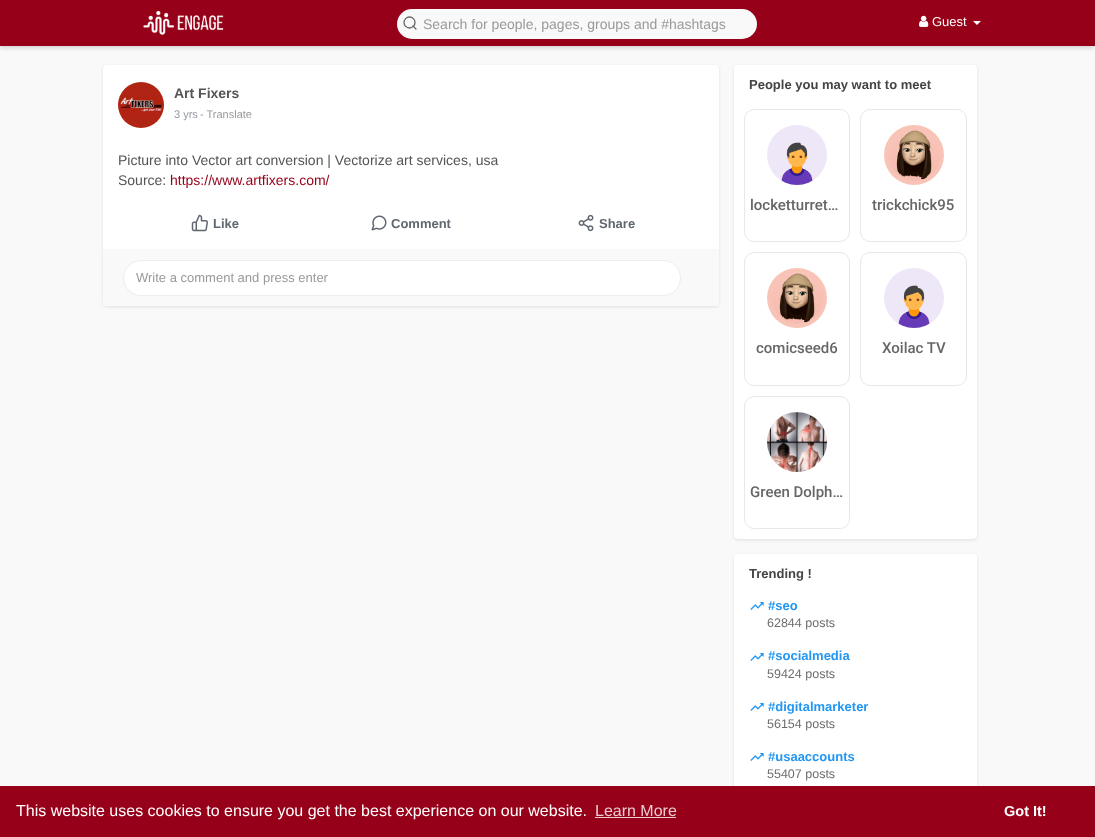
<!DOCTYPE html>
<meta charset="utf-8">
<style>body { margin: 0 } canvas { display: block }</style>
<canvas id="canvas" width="1095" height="837"></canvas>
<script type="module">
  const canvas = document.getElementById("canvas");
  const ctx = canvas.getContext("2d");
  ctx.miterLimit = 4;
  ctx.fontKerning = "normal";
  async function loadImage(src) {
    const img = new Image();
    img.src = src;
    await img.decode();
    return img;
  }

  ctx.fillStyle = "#f9f9f9";
  ctx.fillRect(0, 0, 1095, 837);
  ctx.fillStyle = "rgba(0, 0, 0, 0.15)";
  ctx.filter = "blur(2px)";
  ctx.beginPath();
  ctx.rect(0, 2, 1095, 46);
  ctx.fill();
  ctx.filter = "none";
  ctx.fillStyle = "#960018";
  ctx.fillRect(0, 0, 1095, 46);
  ctx.drawImage(await loadImage("img1.png"), 143, 11, 81, 24);
  ctx.fillStyle = "#f9f9f9";
  ctx.beginPath();
  ctx.roundRect(397, 9, 360, 30, 15);
  ctx.fill();
  ctx.beginPath();
  ctx.arc(409.5, 22.5, 5.5, 0, Math.PI * 2);
  ctx.strokeStyle = "#666666";
  ctx.lineWidth = 1.3;
  ctx.stroke();
  ctx.beginPath();
  ctx.moveTo(416, 29);
  ctx.lineTo(413, 26);
  ctx.lineCap = "round";
  ctx.lineJoin = "round";
  ctx.stroke();
  ctx.font = "14px Liberation Sans";
  ctx.fillStyle = "#999999";
  ctx.fillText("Search for people, pages, groups and #hashtags", 423, 29);
  ctx.drawImage(await loadImage("img2.png"), 919, 15, 10, 12);
  ctx.font = "13px Liberation Sans";
  ctx.fillStyle = "#ffffff";
  ctx.fillText("Guest", 932, 26);
  ctx.beginPath();
  ctx.moveTo(973, 21);
  ctx.lineTo(981, 21);
  ctx.lineTo(977, 25);
  ctx.closePath();
  ctx.fill();
  ctx.fillStyle = "rgba(0, 0, 0, 0.1)";
  ctx.filter = "blur(1.5px)";
  ctx.beginPath();
  ctx.roundRect(103, 66, 616, 241, 4);
  ctx.fill();
  ctx.filter = "none";
  ctx.fillStyle = "#ffffff";
  ctx.beginPath();
  ctx.roundRect(103, 65, 616, 241, 4);
  ctx.fill();
  ctx.drawImage(await loadImage("img3.png"), 118, 82, 46, 46);
  ctx.font = "bold 14px Liberation Sans";
  ctx.fillStyle = "#555555";
  ctx.fillText("Art Fixers", 174, 98);
  ctx.font = "11px Liberation Sans";
  ctx.fillStyle = "#9197a3";
  ctx.fillText("3 yrs", 174, 118);
  ctx.fillStyle = "#999999";
  ctx.fillText("- Translate", 200, 118);
  ctx.font = "14px Liberation Sans";
  ctx.fillStyle = "#555555";
  ctx.fillText("Picture into Vector art conversion | Vectorize art services, usa", 118, 165);
  ctx.fillText("Source:", 118, 185);
  ctx.fillStyle = "#960018";
  ctx.fillText("https://www.artfixers.com/", 170, 185);
  ctx.drawImage(await loadImage("img4.png"), 191, 214, 17, 18);
  ctx.font = "bold 13px Liberation Sans";
  ctx.fillStyle = "#616770";
  ctx.fillText("Like", 213, 228);
  ctx.drawImage(await loadImage("img5.png"), 371, 215, 16, 16);
  ctx.fillText("Comment", 391, 228);
  ctx.drawImage(await loadImage("img6.png"), 578, 214, 16, 18);
  ctx.fillText("Share", 599, 228);
  ctx.fillStyle = "#f9f9f9";
  ctx.fillRect(103, 249, 616, 57);
  ctx.fillStyle = "#ffffff";
  ctx.beginPath();
  ctx.roundRect(123.5, 260.5, 557, 35, 17.5);
  ctx.fill();
  ctx.strokeStyle = "#ededed";
  ctx.lineWidth = 1;
  ctx.lineJoin = "miter";
  ctx.stroke();
  ctx.font = "13px Liberation Sans";
  ctx.fillStyle = "#999999";
  ctx.fillText("Write a comment and press enter", 136, 282);
  ctx.fillStyle = "rgba(0, 0, 0, 0.1)";
  ctx.filter = "blur(1.5px)";
  ctx.beginPath();
  ctx.roundRect(734, 66, 243, 474, 4);
  ctx.fill();
  ctx.filter = "none";
  ctx.fillStyle = "#ffffff";
  ctx.beginPath();
  ctx.roundRect(734, 65, 243, 474, 4);
  ctx.fill();
  ctx.beginPath();
  ctx.roundRect(734, 65, 243, 39, [4, 4, 0, 0]);
  ctx.fill();
  ctx.font = "bold 13px Liberation Sans";
  ctx.fillStyle = "#444444";
  ctx.fillText("People you may want to meet", 749, 89);
  ctx.beginPath();
  ctx.roundRect(744.5, 109.5, 105, 132, 9.5);
  ctx.strokeStyle = "#e8e8e8";
  ctx.stroke();
  ctx.drawImage(await loadImage("img7.png"), 767, 125, 60, 60);
  ctx.font = "500 15px Roboto";
  ctx.fillStyle = "#666666";
  ctx.fillText("locketturret…", 750, 210);
  ctx.beginPath();
  ctx.roundRect(860.5, 109.5, 106, 132, 9.5);
  ctx.stroke();
  ctx.drawImage(await loadImage("img8.png"), 884, 125, 60, 60);
  ctx.fillText("trickchick95", 872, 210);
  ctx.beginPath();
  ctx.roundRect(744.5, 252.5, 105, 133, 9.5);
  ctx.stroke();
  ctx.drawImage(await loadImage("img9.png"), 767, 268, 60, 60);
  ctx.fillText("comicseed6", 756, 353);
  ctx.beginPath();
  ctx.roundRect(860.5, 252.5, 106, 133, 9.5);
  ctx.stroke();
  ctx.drawImage(await loadImage("img10.png"), 884, 268, 60, 60);
  ctx.fillText("Xoilac TV", 882, 353);
  ctx.beginPath();
  ctx.roundRect(744.5, 396.5, 105, 132, 9.5);
  ctx.stroke();
  ctx.drawImage(await loadImage("img11.png"), 767, 412, 60, 60);
  ctx.fillText("Green Dolph…", 750, 497);
  ctx.fillStyle = "rgba(0, 0, 0, 0.1)";
  ctx.filter = "blur(1.5px)";
  ctx.beginPath();
  ctx.roundRect(734, 555, 243, 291, 4);
  ctx.fill();
  ctx.filter = "none";
  ctx.fillStyle = "#ffffff";
  ctx.beginPath();
  ctx.roundRect(734, 554, 243, 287, 4);
  ctx.fill();
  ctx.beginPath();
  ctx.roundRect(734, 554, 243, 39, [4, 4, 0, 0]);
  ctx.fill();
  ctx.font = "bold 13px Liberation Sans";
  ctx.fillStyle = "#444444";
  ctx.fillText("Trending !", 749, 578);
  ctx.drawImage(await loadImage("img12.png"), 750, 602, 14, 8);
  ctx.fillStyle = "#2196f3";
  ctx.fillText("#seo", 768, 610);
  ctx.font = "12.5px Liberation Sans";
  ctx.fillStyle = "#6c6c6c";
  ctx.fillText("62844 posts", 767, 627);
  ctx.drawImage(await loadImage("img12.png"), 750, 653, 14, 8);
  ctx.font = "bold 13px Liberation Sans";
  ctx.fillStyle = "#2196f3";
  ctx.fillText("#socialmedia", 768, 660);
  ctx.font = "12.5px Liberation Sans";
  ctx.fillStyle = "#6c6c6c";
  ctx.fillText("59424 posts", 767, 678);
  ctx.drawImage(await loadImage("img12.png"), 750, 703, 14, 8);
  ctx.font = "bold 13px Liberation Sans";
  ctx.fillStyle = "#2196f3";
  ctx.fillText("#digitalmarketer", 768, 711);
  ctx.font = "12.5px Liberation Sans";
  ctx.fillStyle = "#6c6c6c";
  ctx.fillText("56154 posts", 767, 728);
  ctx.drawImage(await loadImage("img12.png"), 750, 753, 14, 8);
  ctx.font = "bold 13px Liberation Sans";
  ctx.fillStyle = "#2196f3";
  ctx.fillText("#usaaccounts", 768, 761);
  ctx.font = "12.5px Liberation Sans";
  ctx.fillStyle = "#6c6c6c";
  ctx.fillText("55407 posts", 767, 778);
  ctx.fillStyle = "#960018";
  ctx.fillRect(0, 786, 1095, 51);
  ctx.font = "16px Liberation Sans";
  ctx.fillStyle = "#ffffff";
  ctx.fillText("This website uses cookies to ensure you get the best experience on our website.", 16, 816);
  ctx.fillStyle = "#eaccd1";
  ctx.fillText("Learn More", 595, 816);
  ctx.fillRect(595, 817, 81, 1);
  ctx.font = "bold 14.5px Liberation Sans";
  ctx.fillStyle = "#ffffff";
  ctx.fillText("Got It!", 1004, 816);
</script>
